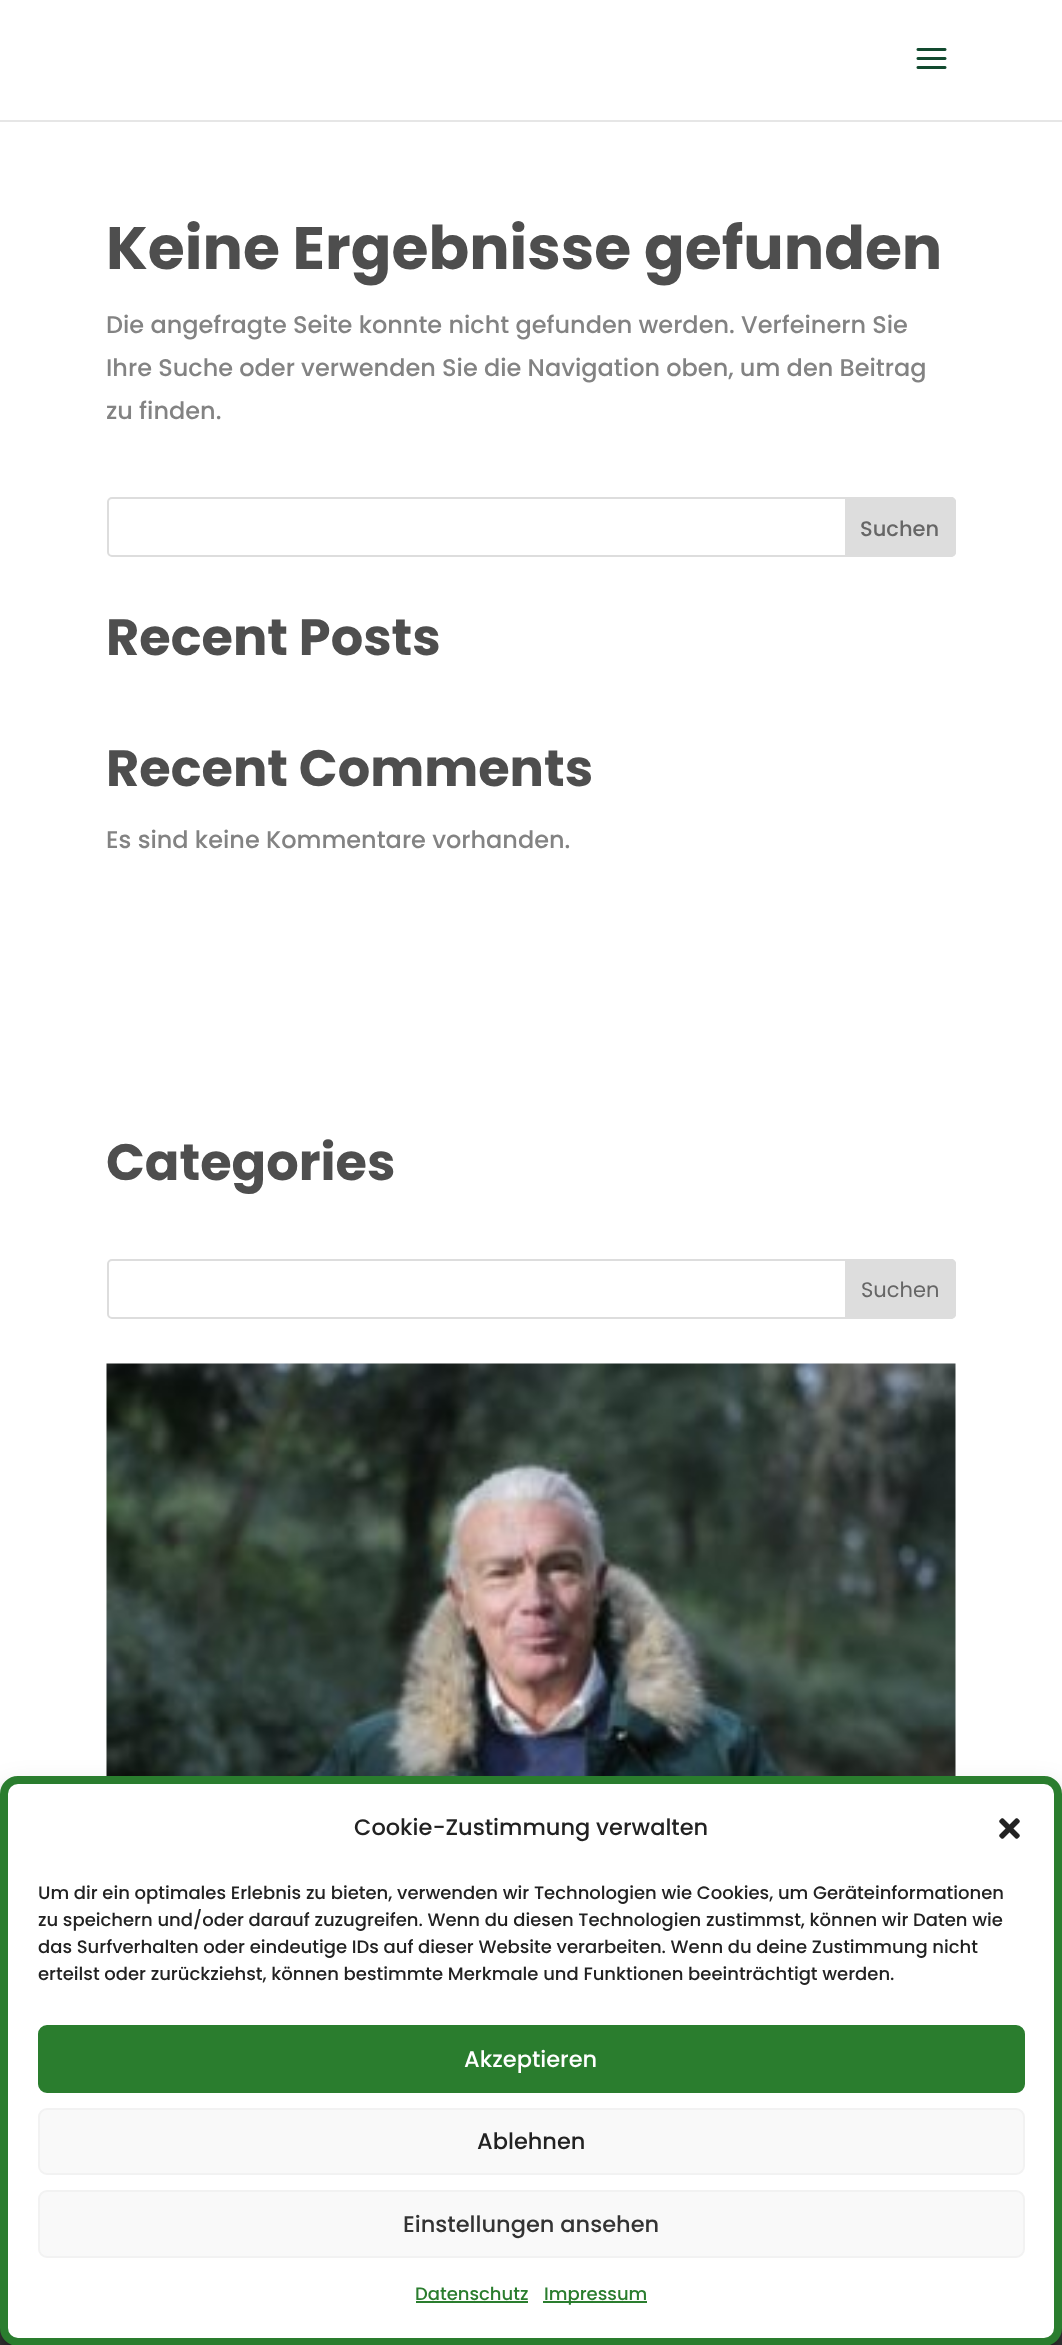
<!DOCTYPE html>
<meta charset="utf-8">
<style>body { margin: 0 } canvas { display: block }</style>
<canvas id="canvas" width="1062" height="2345"></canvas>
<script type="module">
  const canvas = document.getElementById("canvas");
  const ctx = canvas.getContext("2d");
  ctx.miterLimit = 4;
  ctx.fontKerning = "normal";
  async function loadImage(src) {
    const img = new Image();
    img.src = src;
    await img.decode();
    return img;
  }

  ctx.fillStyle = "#ffffff";
  ctx.fillRect(0, 0, 1062, 2345);
  ctx.fillStyle = "#e6e6e6";
  ctx.fillRect(0, 120, 1062, 2);
  ctx.drawImage(await loadImage("img1.png"), 916, 48, 31, 21);
  ctx.font = "bold 60px Poppins";
  ctx.fillStyle = "#4e4e4e";
  ctx.fillText("Keine Ergebnisse gefunden", 106, 269);
  ctx.font = "500 24px Poppins";
  ctx.fillStyle = "#838383";
  ctx.fillText("Die angefragte Seite konnte nicht gefunden werden. Verfeinern Sie", 106, 333);
  ctx.fillText("Ihre Suche oder verwenden Sie die Navigation oben, um den Beitrag", 106, 376);
  ctx.fillText("zu finden.", 106, 419);
  ctx.beginPath();
  ctx.roundRect(108, 498, 847, 58, 4);
  ctx.strokeStyle = "#dddddd";
  ctx.lineWidth = 2;
  ctx.stroke();
  ctx.fillStyle = "#dddddd";
  ctx.beginPath();
  ctx.roundRect(846, 498, 109, 58, [0, 4, 4, 0]);
  ctx.fill();
  ctx.stroke();
  ctx.font = "500 21px Poppins";
  ctx.fillStyle = "#666666";
  ctx.fillText("Suchen", 860, 536);
  ctx.font = "bold 51px Poppins";
  ctx.fillStyle = "#4e4e4e";
  ctx.fillText("Recent Posts", 106, 655);
  ctx.fillText("Recent Comments", 106, 786);
  ctx.font = "500 24px Poppins";
  ctx.fillStyle = "#838383";
  ctx.fillText("Es sind keine Kommentare vorhanden.", 106, 848);
  ctx.font = "bold 51px Poppins";
  ctx.fillStyle = "#4e4e4e";
  ctx.fillText("Categories", 106, 1180);
  ctx.beginPath();
  ctx.roundRect(108, 1260, 847, 58, 4);
  ctx.stroke();
  ctx.fillStyle = "#dddddd";
  ctx.beginPath();
  ctx.roundRect(846, 1260, 109, 58, [0, 4, 4, 0]);
  ctx.fill();
  ctx.stroke();
  ctx.font = "21px Poppins";
  ctx.fillStyle = "#666666";
  ctx.fillText("Suchen", 861, 1297);
  ctx.drawImage(await loadImage("img2.png"), 106, 1363, 850, 413);
  ctx.fillStyle = "#383838";
  ctx.fillRect(0, 2328, 1062, 17);
  ctx.fillStyle = "rgba(0, 0, 0, 0.23)";
  ctx.filter = "blur(4.5px)";
  ctx.beginPath();
  ctx.roundRect(0, 1785, 1062, 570, 18);
  ctx.fill();
  ctx.filter = "none";
  ctx.fillStyle = "rgba(0, 0, 0, 0.19)";
  ctx.filter = "blur(15px)";
  ctx.beginPath();
  ctx.roundRect(0, 1791, 1062, 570, 18);
  ctx.fill();
  ctx.filter = "none";
  ctx.fillStyle = "#ffffff";
  ctx.beginPath();
  ctx.roundRect(4, 1780, 1054, 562, 14);
  ctx.fill();
  ctx.strokeStyle = "#2a7d2e";
  ctx.lineWidth = 8;
  ctx.stroke();
  ctx.font = "500 22.5px Poppins";
  ctx.fillStyle = "#222222";
  ctx.fillText("Cookie-Zustimmung verwalten", 354, 1835);
  ctx.drawImage(await loadImage("img3.png"), 999, 1818, 21, 21);
  ctx.font = "500 18px Poppins";
  ctx.fillText("Um dir ein optimales Erlebnis zu bieten, verwenden wir Technologien wie Cookies, um Geräteinformationen", 38, 1899);
  ctx.fillText("zu speichern und/oder darauf zuzugreifen. Wenn du diesen Technologien zustimmst, können wir Daten wie", 38, 1926);
  ctx.fillText("das Surfverhalten oder eindeutige IDs auf dieser Website verarbeiten. Wenn du deine Zustimmung nicht", 38, 1953);
  ctx.fillText("erteilst oder zurückziehst, können bestimmte Merkmale und Funktionen beeinträchtigt werden.", 38, 1980);
  ctx.fillStyle = "#2a7d2e";
  ctx.beginPath();
  ctx.roundRect(39, 2026, 985, 66, 8);
  ctx.fill();
  ctx.lineWidth = 2;
  ctx.stroke();
  ctx.font = "500 22.5px Poppins";
  ctx.fillStyle = "#ffffff";
  ctx.fillText("Akzeptieren", 464, 2067);
  ctx.fillStyle = "#f9f9f9";
  ctx.beginPath();
  ctx.roundRect(39, 2109, 985, 65, 8);
  ctx.fill();
  ctx.strokeStyle = "#f2f2f2";
  ctx.stroke();
  ctx.fillStyle = "#222222";
  ctx.fillText("Ablehnen", 477, 2149);
  ctx.fillStyle = "#f9f9f9";
  ctx.beginPath();
  ctx.roundRect(39, 2191, 985, 66, 8);
  ctx.fill();
  ctx.stroke();
  ctx.fillStyle = "#333333";
  ctx.fillText("Einstellungen ansehen", 403, 2232);
  ctx.font = "500 18px Poppins";
  ctx.fillStyle = "#2a7d2e";
  ctx.fillText("Datenschutz", 415, 2300);
  ctx.fillRect(416, 2301, 112, 2);
  ctx.fillRect(543, 2301, 104, 2);
  ctx.fillText("Impressum", 544, 2300);
</script>
